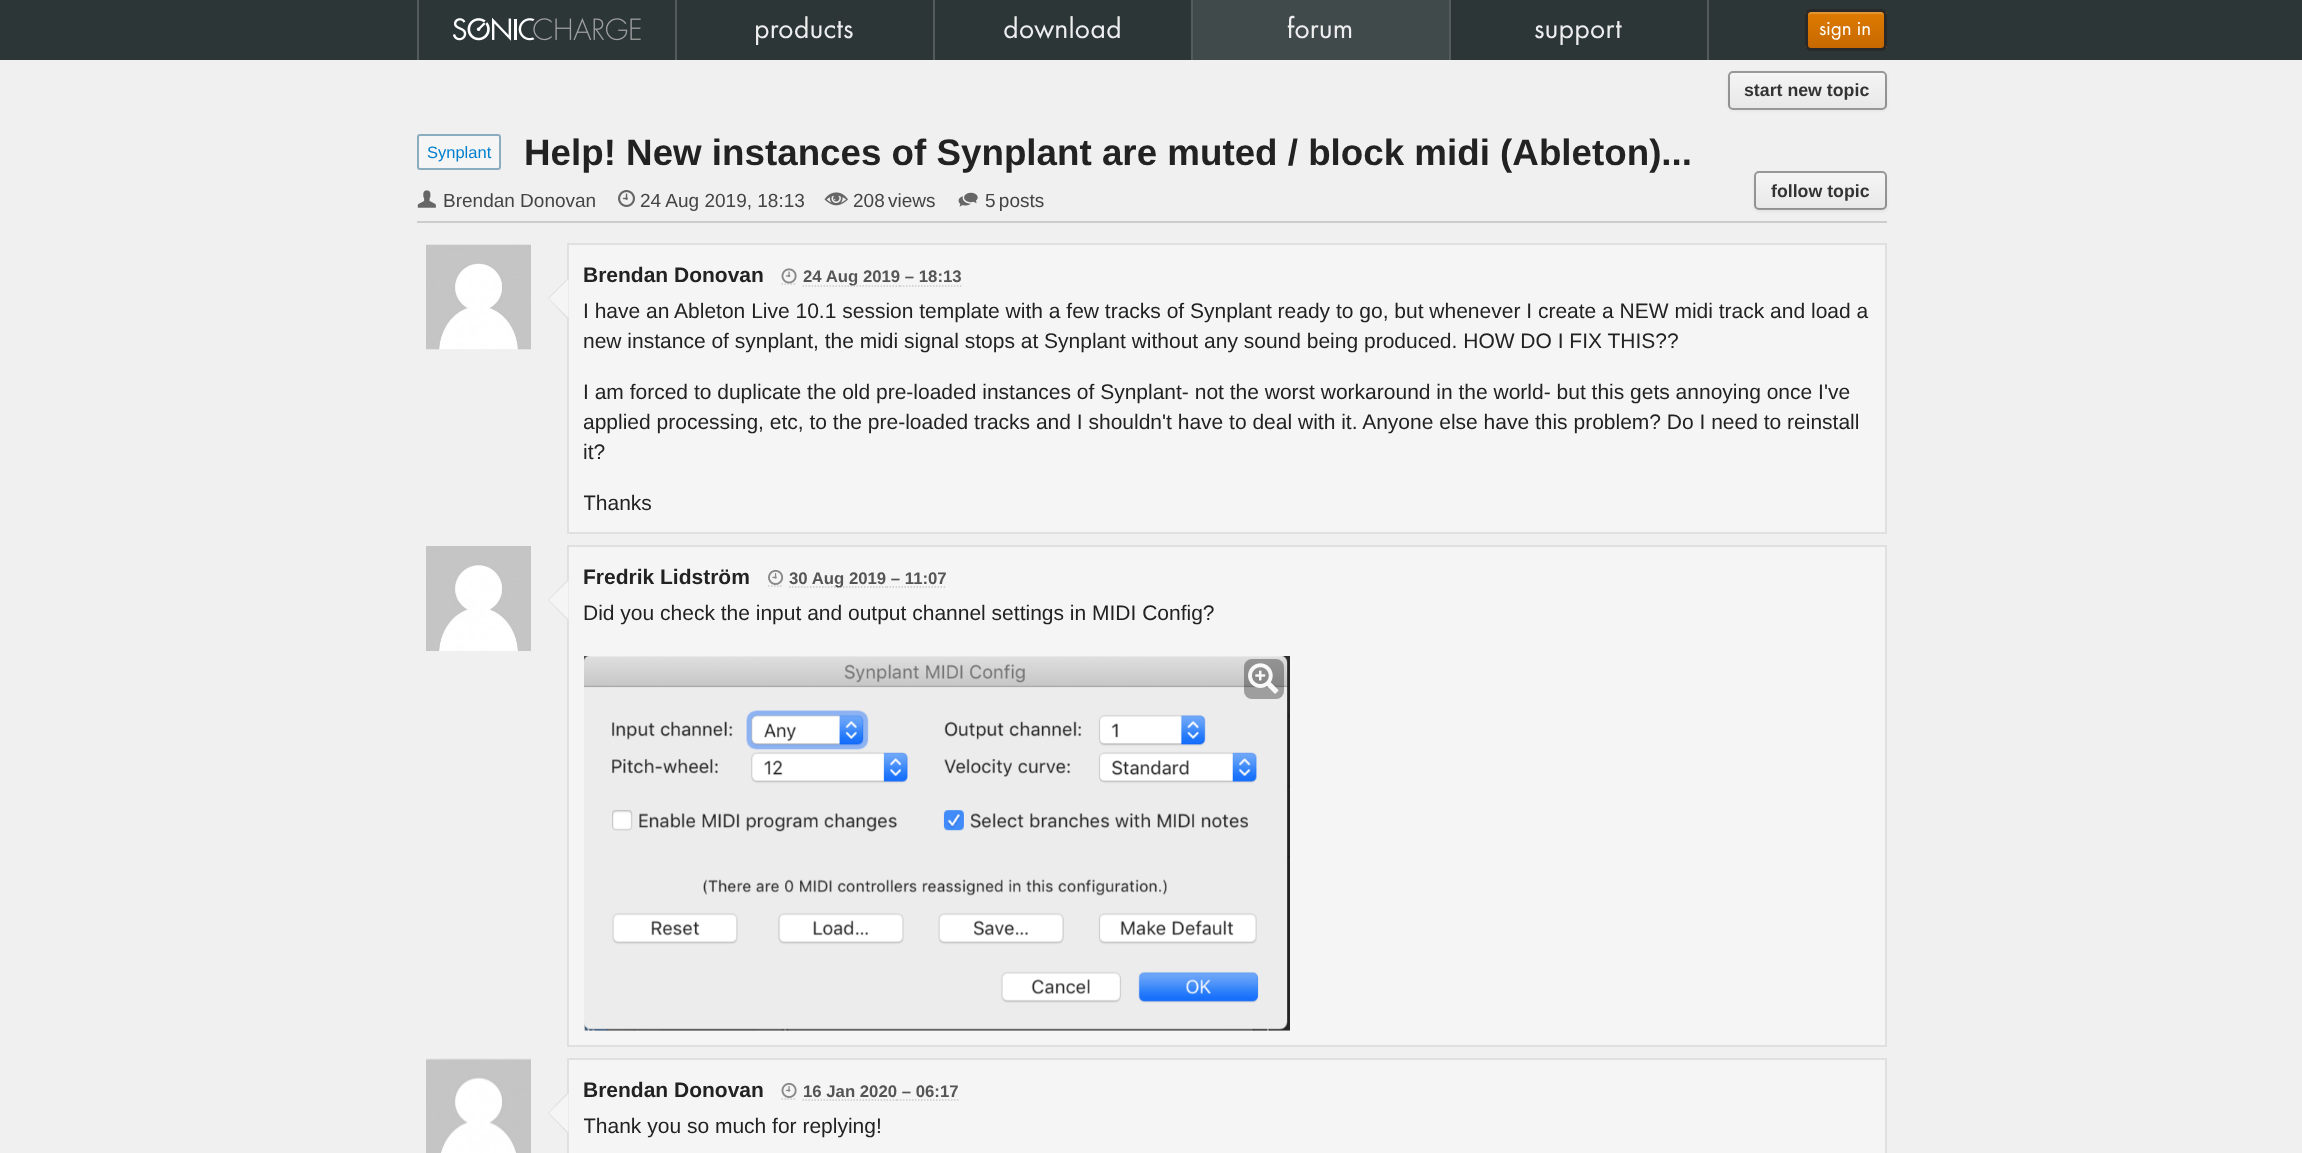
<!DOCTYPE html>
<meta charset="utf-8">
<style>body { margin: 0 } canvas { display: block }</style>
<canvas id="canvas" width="2302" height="1153"></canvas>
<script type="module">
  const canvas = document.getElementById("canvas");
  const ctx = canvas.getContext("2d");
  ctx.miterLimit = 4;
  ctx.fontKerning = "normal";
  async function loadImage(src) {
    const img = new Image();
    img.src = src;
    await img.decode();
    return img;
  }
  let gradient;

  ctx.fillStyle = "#f0f0f0";
  ctx.fillRect(0, 0, 2302, 1153);
  ctx.fillStyle = "#2c3636";
  ctx.fillRect(0, 0, 2302, 60);
  ctx.drawImage(await loadImage("img1.png"), 452, 17, 189, 24);
  ctx.fillStyle = "#535b5b";
  ctx.fillRect(417, 0, 2, 60);
  ctx.fillRect(675, 0, 2, 60);
  ctx.font = "30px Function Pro";
  ctx.fillStyle = "#eeeeee";
  ctx.fillText("products", 754, 38);
  ctx.fillStyle = "#535b5b";
  ctx.fillRect(933, 0, 2, 60);
  ctx.fillStyle = "#eeeeee";
  ctx.fillText("download", 1003, 38);
  ctx.fillStyle = "#535b5b";
  ctx.fillRect(1191, 0, 2, 60);
  ctx.fillStyle = "#414a4a";
  ctx.fillRect(1193, 0, 256, 60);
  ctx.fillStyle = "#eeeeee";
  ctx.fillText("forum", 1287, 38);
  ctx.fillStyle = "#535b5b";
  ctx.fillRect(1449, 0, 2, 60);
  ctx.fillStyle = "#eeeeee";
  ctx.fillText("support", 1534, 38);
  ctx.fillStyle = "#535b5b";
  ctx.fillRect(1707, 0, 2, 60);
  ctx.save();
  ctx.beginPath();
  ctx.roundRect(1805, 9, 82, 42, 6);
  ctx.clip();
  gradient = ctx.createLinearGradient(1846, 12, 1846, 48);
  gradient.addColorStop(0, "#dd7b00");
  gradient.addColorStop(1, "#c76800");
  ctx.fillStyle = gradient;
  ctx.fillRect(1805, 12, 82, 36);
  ctx.restore();
  ctx.fillStyle = "#e39533";
  ctx.beginPath();
  ctx.moveTo(1810, 14);
  ctx.lineTo(1881, 14);
  ctx.bezierCurveTo(1883, 14, 1884, 15, 1884, 16);
  ctx.bezierCurveTo(1884, 9, 1873, 12, 1869, 12);
  ctx.lineTo(1823, 12);
  ctx.bezierCurveTo(1819, 12, 1808, 9, 1808, 16);
  ctx.bezierCurveTo(1808, 15, 1809, 14, 1810, 14);
  ctx.closePath();
  ctx.fill();
  ctx.beginPath();
  ctx.roundRect(1806.5, 10.5, 79, 39, 4.5);
  ctx.strokeStyle = "#292929";
  ctx.lineWidth = 3;
  ctx.stroke();
  ctx.font = "21px Function Pro";
  ctx.fillStyle = "#ffffff";
  ctx.fillText("sign in", 1819, 35);
  ctx.fillStyle = "rgba(0, 0, 0, 0.05)";
  ctx.filter = "blur(1.5px)";
  ctx.beginPath();
  ctx.roundRect(1728, 72, 159, 39, 5);
  ctx.fill();
  ctx.filter = "none";
  ctx.fillStyle = "#f5f5f5";
  ctx.beginPath();
  ctx.roundRect(1728, 71, 159, 39, 5);
  ctx.fill();
  ctx.save();
  ctx.beginPath();
  ctx.roundRect(1728, 71, 159, 39, 5);
  ctx.clip();
  gradient = ctx.createLinearGradient(1808, 72, 1808, 108);
  gradient.addColorStop(0, "#f5f5f5");
  gradient.addColorStop(1, "#e8e8e8");
  ctx.fillStyle = gradient;
  ctx.fillRect(1728, 72, 159, 36);
  ctx.restore();
  ctx.fillStyle = "#f7f7f7";
  ctx.beginPath();
  ctx.moveTo(1732, 74);
  ctx.lineTo(1882, 74);
  ctx.bezierCurveTo(1884, 74, 1886, 75, 1886, 76);
  ctx.bezierCurveTo(1886, 74, 1885, 72, 1883, 72);
  ctx.lineTo(1732, 72);
  ctx.bezierCurveTo(1730, 72, 1730, 74, 1730, 76);
  ctx.bezierCurveTo(1730, 75, 1731, 74, 1732, 74);
  ctx.closePath();
  ctx.fill();
  ctx.beginPath();
  ctx.roundRect(1729, 72, 157, 37, 4);
  ctx.strokeStyle = "rgba(0, 0, 0, 0.38)";
  ctx.lineWidth = 2;
  ctx.stroke();
  ctx.font = "bold 17.75px Liberation Sans";
  ctx.fillStyle = "#333333";
  ctx.fillText("start new topic", 1744, 96);
  ctx.fillStyle = "#cccccc";
  ctx.fillRect(417, 221, 1470, 2);
  ctx.fillStyle = "#f5f5f5";
  ctx.beginPath();
  ctx.roundRect(418, 135, 82, 34, 2);
  ctx.fill();
  ctx.strokeStyle = "#8cacc0";
  ctx.stroke();
  ctx.font = "16.5px Liberation Sans";
  ctx.fillStyle = "#007fce";
  ctx.fillText("Synplant", 427, 158);
  ctx.font = "bold 36.75px Liberation Sans";
  ctx.fillStyle = "#222222";
  ctx.fillText("Help! New instances of Synplant are muted / block midi (Ableton)...", 524, 165);
  ctx.drawImage(await loadImage("img2.png"), 417, 190, 19, 18);
  ctx.font = "19px Liberation Sans";
  ctx.fillStyle = "#444444";
  ctx.fillText("Brendan Donovan", 443, 207);
  ctx.drawImage(await loadImage("img3.png"), 618, 190, 17, 17);
  ctx.fillText("24 Aug 2019, 18:13", 640, 207);
  ctx.drawImage(await loadImage("img4.png"), 824, 192, 24, 14);
  ctx.wordSpacing = "-2px";
  ctx.fillText("208 views", 853, 207);
  ctx.drawImage(await loadImage("img5.png"), 958, 192, 20, 15);
  ctx.fillText("5 posts", 985, 207);
  ctx.fillStyle = "rgba(0, 0, 0, 0.05)";
  ctx.filter = "blur(1.5px)";
  ctx.beginPath();
  ctx.roundRect(1754, 173, 133, 39, 5);
  ctx.fill();
  ctx.filter = "none";
  ctx.fillStyle = "#f5f5f5";
  ctx.beginPath();
  ctx.roundRect(1754, 171, 133, 39, 5);
  ctx.fill();
  ctx.save();
  ctx.beginPath();
  ctx.roundRect(1754, 171, 133, 39, 5);
  ctx.clip();
  gradient = ctx.createLinearGradient(1820, 173, 1820, 209);
  gradient.addColorStop(0, "#f5f5f5");
  gradient.addColorStop(1, "#e8e8e8");
  ctx.fillStyle = gradient;
  ctx.fillRect(1754, 173, 133, 36);
  ctx.restore();
  ctx.beginPath();
  ctx.roundRect(1755, 172, 131, 37, 4);
  ctx.strokeStyle = "rgba(0, 0, 0, 0.38)";
  ctx.stroke();
  ctx.wordSpacing = "0px";
  ctx.font = "bold 17.75px Liberation Sans";
  ctx.fillStyle = "#333333";
  ctx.fillText("follow topic", 1771, 197);
  ctx.fillStyle = "#f5f5f5";
  ctx.beginPath();
  ctx.rect(568, 244, 1318, 289);
  ctx.fill();
  ctx.strokeStyle = "#e0e0e0";
  ctx.stroke();
  ctx.drawImage(await loadImage("img6.png"), 426, 244, 105, 106);
  ctx.font = "bold 21px Liberation Sans";
  ctx.fillStyle = "#222222";
  ctx.fillText("Brendan Donovan", 583, 282);
  ctx.beginPath();
  ctx.moveTo(781.5, 284);
  ctx.lineTo(796.5, 284);
  ctx.strokeStyle = "#cccccc";
  ctx.lineWidth = 1.5;
  ctx.setLineDash([1.5, 1.5]);
  ctx.stroke();
  ctx.beginPath();
  ctx.moveTo(802.5, 286);
  ctx.lineTo(900, 286);
  ctx.stroke();
  ctx.beginPath();
  ctx.moveTo(900, 286);
  ctx.lineTo(918, 286);
  ctx.moveTo(918, 286);
  ctx.lineTo(961.5, 286);
  ctx.stroke();
  ctx.drawImage(await loadImage("img7.png"), 781, 268, 16, 16);
  ctx.font = "bold 16.75px Liberation Sans";
  ctx.fillStyle = "#555555";
  ctx.fillText("24 Aug 2019 – 18:13", 803, 282);
  ctx.fillStyle = "#e0e0e0";
  ctx.beginPath();
  ctx.moveTo(568, 278);
  ctx.lineTo(568, 320);
  ctx.lineTo(548, 298);
  ctx.closePath();
  ctx.fill();
  ctx.fillStyle = "#f5f5f5";
  ctx.beginPath();
  ctx.moveTo(568.5, 279);
  ctx.lineTo(568.5, 318);
  ctx.lineTo(549, 298.5);
  ctx.closePath();
  ctx.fill();
  ctx.font = "21px Liberation Sans";
  ctx.fillStyle = "#222222";
  ctx.fillText("I have an Ableton Live 10.1 session template with a few tracks of Synplant ready to go, but whenever I create a NEW midi track and load a", 583, 318);
  ctx.fillText("new instance of synplant, the midi signal stops at Synplant without any sound being produced. HOW DO I FIX THIS??", 583, 348);
  ctx.fillText("I am forced to duplicate the old pre-loaded instances of Synplant- not the worst workaround in the world- but this gets annoying once I've", 583, 399);
  ctx.save();
  ctx.beginPath();
  ctx.rect(584, 296, 1287, 222);
  ctx.clip();
  ctx.fillText("applied processing, etc, to the pre-loaded tracks and I shouldn't have to deal with it. Anyone else have this problem? Do I need to reinstall", 583, 429);
  ctx.restore();
  ctx.fillText("it?", 583, 459);
  ctx.save();
  ctx.beginPath();
  ctx.rect(584, 296, 1287, 222);
  ctx.clip();
  ctx.fillText("Thanks", 583, 510);
  ctx.restore();
  ctx.fillStyle = "#f5f5f5";
  ctx.beginPath();
  ctx.rect(568, 546, 1318, 500);
  ctx.fill();
  ctx.strokeStyle = "#e0e0e0";
  ctx.lineWidth = 2;
  ctx.setLineDash([]);
  ctx.stroke();
  ctx.fillStyle = "#e0e0e0";
  ctx.beginPath();
  ctx.moveTo(568, 579);
  ctx.lineTo(568, 621);
  ctx.lineTo(548, 600);
  ctx.closePath();
  ctx.fill();
  ctx.drawImage(await loadImage("img8.png"), 426, 546, 105, 105);
  ctx.font = "bold 21px Liberation Sans";
  ctx.fillStyle = "#222222";
  ctx.fillText("Fredrik Lidström", 583, 584);
  ctx.beginPath();
  ctx.moveTo(768, 586);
  ctx.lineTo(783, 586);
  ctx.strokeStyle = "#cccccc";
  ctx.lineWidth = 1.5;
  ctx.setLineDash([1.5, 1.5]);
  ctx.stroke();
  ctx.beginPath();
  ctx.moveTo(789, 587);
  ctx.lineTo(886.5, 587);
  ctx.stroke();
  ctx.beginPath();
  ctx.moveTo(886.5, 587);
  ctx.lineTo(904.5, 587);
  ctx.moveTo(904.5, 587);
  ctx.lineTo(946.5, 587);
  ctx.stroke();
  ctx.drawImage(await loadImage("img9.png"), 768, 569, 16, 16);
  ctx.font = "bold 16.75px Liberation Sans";
  ctx.fillStyle = "#555555";
  ctx.fillText("30 Aug 2019 – 11:07", 789, 584);
  ctx.fillStyle = "#f5f5f5";
  ctx.beginPath();
  ctx.moveTo(568.5, 580.5);
  ctx.lineTo(568.5, 619.5);
  ctx.lineTo(549, 600);
  ctx.closePath();
  ctx.fill();
  ctx.font = "21px Liberation Sans";
  ctx.fillStyle = "#222222";
  ctx.fillText("Did you check the input and output channel settings in MIDI Config?", 583, 620);
  ctx.drawImage(await loadImage("img10.png"), 584, 656, 706, 375);
  ctx.fillStyle = "rgba(0, 0, 0, 0.33)";
  ctx.beginPath();
  ctx.roundRect(1244, 659, 40, 40, 8);
  ctx.fill();
  ctx.drawImage(await loadImage("img11.png"), 1248, 663, 31, 31);
  ctx.fillStyle = "#f5f5f5";
  ctx.beginPath();
  ctx.rect(568, 1059, 1318, 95);
  ctx.fill();
  ctx.strokeStyle = "#e0e0e0";
  ctx.lineWidth = 2;
  ctx.setLineDash([]);
  ctx.stroke();
  ctx.drawImage(await loadImage("img12.png"), 426, 1058, 105, 95);
  ctx.font = "bold 21px Liberation Sans";
  ctx.fillStyle = "#222222";
  ctx.fillText("Brendan Donovan", 583, 1097);
  ctx.beginPath();
  ctx.moveTo(781.5, 1099);
  ctx.lineTo(796.5, 1099);
  ctx.strokeStyle = "#cccccc";
  ctx.lineWidth = 1.5;
  ctx.setLineDash([1.5, 1.5]);
  ctx.stroke();
  ctx.beginPath();
  ctx.moveTo(802.5, 1100);
  ctx.lineTo(897, 1100);
  ctx.stroke();
  ctx.beginPath();
  ctx.moveTo(897, 1100);
  ctx.lineTo(915, 1100);
  ctx.moveTo(915, 1100);
  ctx.lineTo(958.5, 1100);
  ctx.stroke();
  ctx.drawImage(await loadImage("img13.png"), 781, 1082, 16, 16);
  ctx.font = "bold 16.75px Liberation Sans";
  ctx.fillStyle = "#555555";
  ctx.fillText("16 Jan 2020 – 06:17", 803, 1097);
  ctx.fillStyle = "#e0e0e0";
  ctx.beginPath();
  ctx.moveTo(568, 1092);
  ctx.lineTo(568, 1134);
  ctx.lineTo(548, 1113);
  ctx.closePath();
  ctx.fill();
  ctx.fillStyle = "#f5f5f5";
  ctx.beginPath();
  ctx.moveTo(568.5, 1093.5);
  ctx.lineTo(568.5, 1132.5);
  ctx.lineTo(549, 1113);
  ctx.closePath();
  ctx.fill();
  ctx.save();
  ctx.beginPath();
  ctx.rect(584, 1110, 1287, 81);
  ctx.clip();
  ctx.font = "21px Liberation Sans";
  ctx.fillStyle = "#222222";
  ctx.fillText("Thank you so much for replying!", 583, 1133);
  ctx.restore();
</script>
